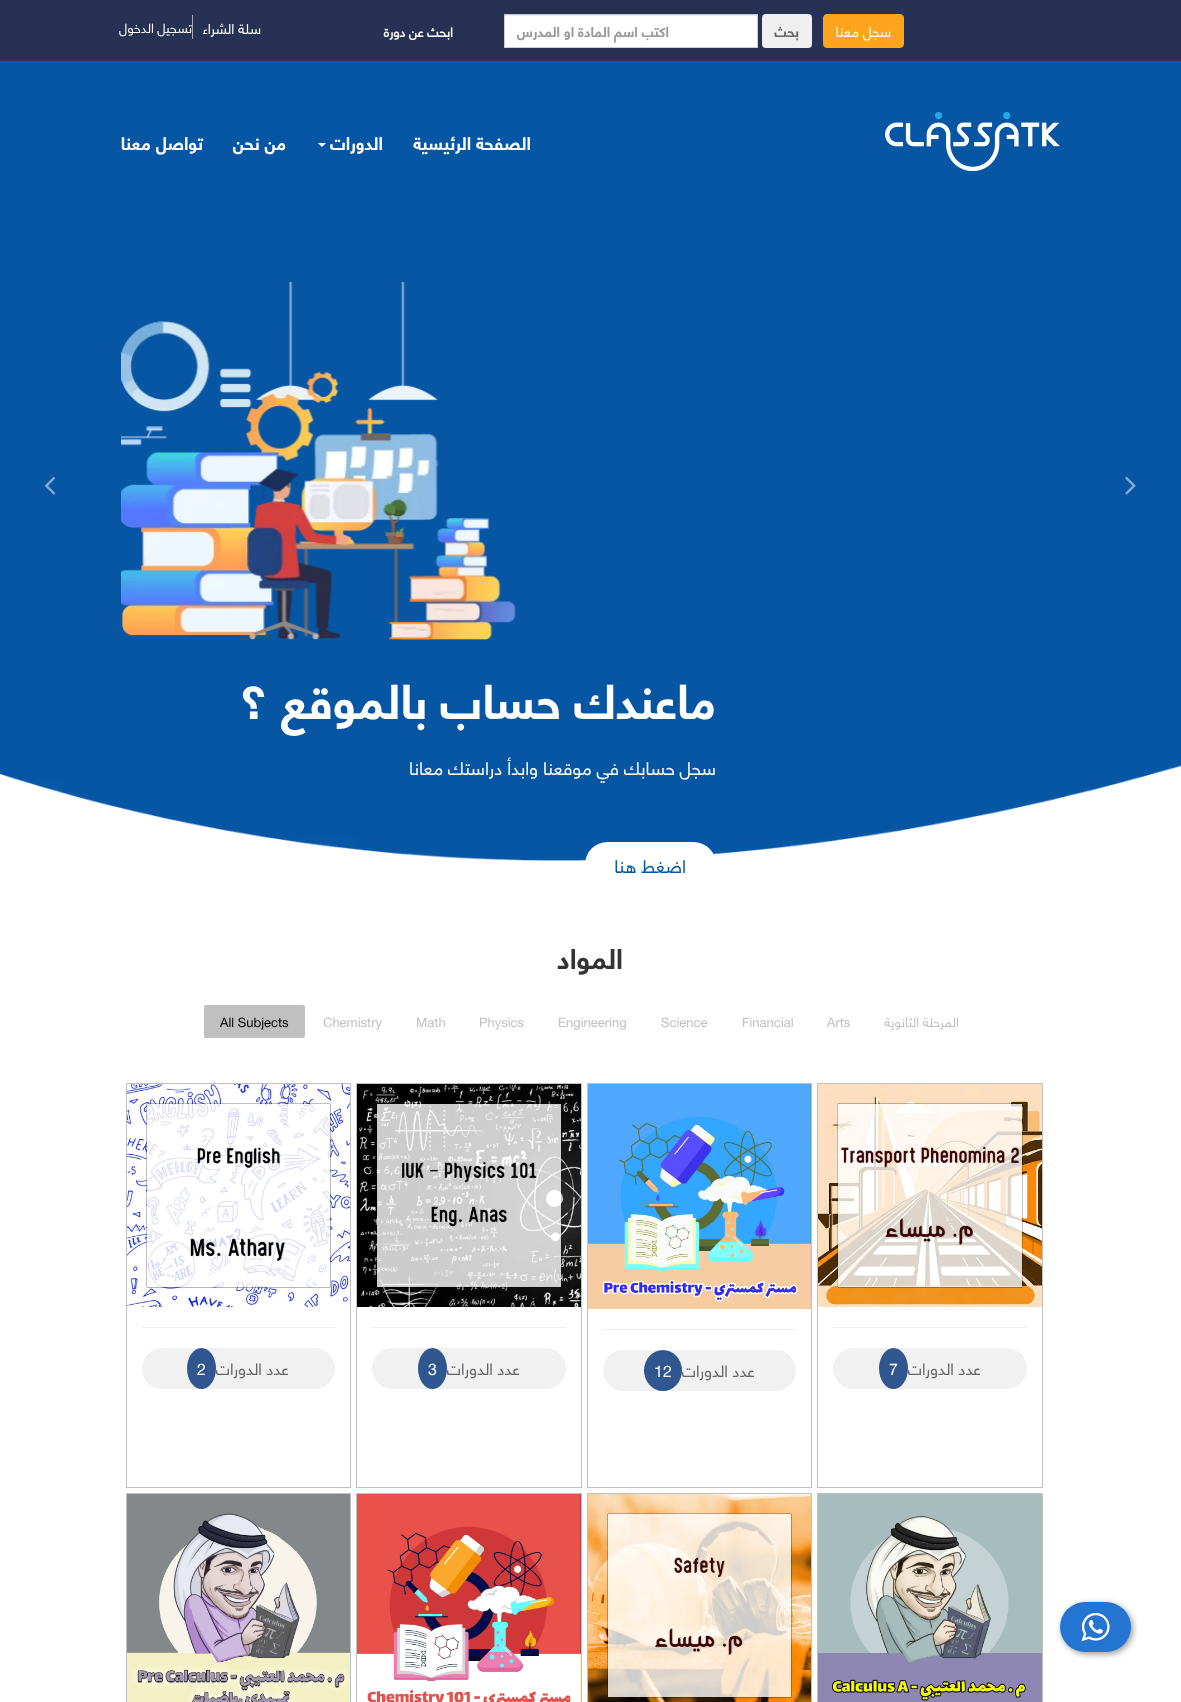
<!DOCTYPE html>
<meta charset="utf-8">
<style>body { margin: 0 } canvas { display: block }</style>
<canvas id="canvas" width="1181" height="1702"></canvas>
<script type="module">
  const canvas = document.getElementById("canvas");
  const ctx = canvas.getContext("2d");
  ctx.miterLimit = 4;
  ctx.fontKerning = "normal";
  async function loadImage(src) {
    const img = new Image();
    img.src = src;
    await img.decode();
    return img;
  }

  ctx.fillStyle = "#ffffff";
  ctx.fillRect(0, 0, 1181, 1702);
  ctx.fillStyle = "#263154";
  ctx.fillRect(0, 0, 1181, 61);
  ctx.fillStyle = "#ffa41c";
  ctx.beginPath();
  ctx.roundRect(823.5, 14.5, 80, 33, 3.5);
  ctx.fill();
  ctx.strokeStyle = "#ffa41c";
  ctx.stroke();
  ctx.direction = "rtl";
  ctx.font = "14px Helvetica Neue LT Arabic";
  ctx.fillStyle = "#ffffff";
  ctx.fillText("سجل معنا", 891, 37);
  ctx.fillStyle = "#efefef";
  ctx.beginPath();
  ctx.roundRect(762, 14, 50, 34, 4);
  ctx.fill();
  ctx.font = "bold 14px 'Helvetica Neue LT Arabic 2'";
  ctx.fillStyle = "#666666";
  ctx.fillText("بحث", 799, 37);
  ctx.fillStyle = "#ffffff";
  ctx.fillRect(505, 16, 252, 31);
  ctx.fillStyle = "#ececec";
  ctx.fillRect(505, 15, 252, 1);
  ctx.strokeStyle = "#cccccc";
  ctx.strokeRect(504.5, 14.5, 253, 33);
  ctx.fillStyle = "#999999";
  ctx.fillText("اكتب اسم المادة او المدرس", 669, 37);
  ctx.font = "bold 13px Helvetica Neue LT Arabic";
  ctx.fillStyle = "#ffffff";
  ctx.fillText("ابحث عن دورة", 453, 37);
  ctx.font = "14px Helvetica Neue LT Arabic";
  ctx.fillText("سلة الشراء", 261, 34);
  ctx.fillStyle = "#a4a8b7";
  ctx.fillRect(192, 15, 1, 24);
  ctx.font = "13px Helvetica Neue LT Arabic";
  ctx.fillStyle = "#ffffff";
  ctx.fillText("تسجيل الدخول", 192, 33);
  ctx.drawImage(await loadImage("img2.png"), 0, 61, 1181, 800);
  ctx.drawImage(await loadImage("img1.png"), 885, 112, 175, 59);
  ctx.font = "bold 18px 'Helvetica Neue LT Arabic 2'";
  ctx.fillText("الصفحة الرئيسية", 531, 150);
  ctx.fillText("الدورات", 383, 150);
  ctx.beginPath();
  ctx.moveTo(318, 143);
  ctx.lineTo(326, 143);
  ctx.lineTo(322, 147);
  ctx.closePath();
  ctx.fill();
  ctx.fillText("من نحن", 286, 150);
  ctx.fillText("تواصل معنا", 203, 150);
  ctx.drawImage(await loadImage("img3.png"), 1125, 476, 11, 19);
  ctx.drawImage(await loadImage("img4.png"), 44, 476, 12, 19);
  ctx.drawImage(await loadImage("img5.png"), 121, 282, 395, 359);
  ctx.font = "bold 48px 'Helvetica Neue LT Arabic 2'";
  ctx.fillText("ماعندك حساب بالموقع ؟", 716, 719);
  ctx.font = "18px Helvetica Neue LT Arabic";
  ctx.fillText("سجل حسابك في موقعنا وابدأ دراستك معانا", 716, 775);
  ctx.beginPath();
  ctx.roundRect(585, 842, 131, 45, 22.5);
  ctx.fill();
  ctx.fillStyle = "#0056a0";
  ctx.fillText("اضغط هنا", 686, 873);
  ctx.font = "bold 28px 'Helvetica Neue LT Arabic 2'";
  ctx.fillStyle = "#343434";
  ctx.fillText("المواد", 623, 969);
  ctx.font = "13px Helvetica Neue LT Arabic";
  ctx.fillStyle = "#c0c0c0";
  ctx.fillText("المرحلة الثانوية", 959, 1027);
  ctx.direction = "ltr";
  ctx.fillText("Arts", 827, 1027);
  ctx.fillText("Financial", 742, 1027);
  ctx.fillText("Science", 661, 1027);
  ctx.fillText("Engineering", 558, 1027);
  ctx.fillText("Physics", 479, 1027);
  ctx.fillText("Math", 416, 1027);
  ctx.fillText("Chemistry", 323, 1027);
  ctx.beginPath();
  ctx.roundRect(204, 1005, 101, 33, 2);
  ctx.fill();
  ctx.fillStyle = "#000000";
  ctx.fillText("All Subjects", 220, 1027);
  ctx.strokeStyle = "#c0c0c0";
  ctx.strokeRect(817.5, 1083.5, 225, 404);
  ctx.drawImage(await loadImage("img6.png"), 818, 1084, 224, 223);
  ctx.fillStyle = "#eeeeee";
  ctx.fillRect(833, 1327, 194, 1);
  ctx.fillStyle = "#f1f1f1";
  ctx.beginPath();
  ctx.roundRect(833, 1348, 194, 41, 20.5);
  ctx.fill();
  ctx.fillStyle = "#30568f";
  ctx.beginPath();
  ctx.ellipse(893.5, 1368.5, 14.5, 20.5, 0, 0, Math.PI * 2);
  ctx.fill();
  ctx.direction = "rtl";
  ctx.font = "16px Helvetica Neue LT Arabic";
  ctx.fillStyle = "#666666";
  ctx.fillText("عدد الدورات", 981, 1375);
  ctx.direction = "ltr";
  ctx.fillStyle = "#ffffff";
  ctx.fillText("7", 889, 1375);
  ctx.strokeRect(587.5, 1083.5, 224, 404);
  ctx.drawImage(await loadImage("img7.png"), 588, 1084, 223, 225);
  ctx.fillStyle = "#eeeeee";
  ctx.fillRect(603, 1329, 193, 1);
  ctx.fillStyle = "#f1f1f1";
  ctx.beginPath();
  ctx.roundRect(603, 1350, 193, 41, 20.5);
  ctx.fill();
  ctx.fillStyle = "#30568f";
  ctx.beginPath();
  ctx.ellipse(663, 1370.5, 19, 20.5, 0, 0, Math.PI * 2);
  ctx.fill();
  ctx.direction = "rtl";
  ctx.fillStyle = "#666666";
  ctx.fillText("عدد الدورات", 755, 1377);
  ctx.direction = "ltr";
  ctx.fillStyle = "#ffffff";
  ctx.fillText("12", 654, 1377);
  ctx.strokeRect(356.5, 1083.5, 225, 404);
  ctx.drawImage(await loadImage("img8.png"), 357, 1084, 224, 223);
  ctx.fillStyle = "#eeeeee";
  ctx.fillRect(372, 1327, 194, 1);
  ctx.fillStyle = "#f1f1f1";
  ctx.beginPath();
  ctx.roundRect(372, 1348, 194, 41, 20.5);
  ctx.fill();
  ctx.fillStyle = "#30568f";
  ctx.beginPath();
  ctx.ellipse(432.5, 1368.5, 14.5, 20.5, 0, 0, Math.PI * 2);
  ctx.fill();
  ctx.direction = "rtl";
  ctx.fillStyle = "#666666";
  ctx.fillText("عدد الدورات", 520, 1375);
  ctx.direction = "ltr";
  ctx.fillStyle = "#ffffff";
  ctx.fillText("3", 428, 1375);
  ctx.strokeRect(126.5, 1083.5, 224, 404);
  ctx.drawImage(await loadImage("img9.png"), 127, 1084, 223, 223);
  ctx.fillStyle = "#eeeeee";
  ctx.fillRect(142, 1327, 193, 1);
  ctx.fillStyle = "#f1f1f1";
  ctx.beginPath();
  ctx.roundRect(142, 1348, 193, 41, 20.5);
  ctx.fill();
  ctx.direction = "rtl";
  ctx.fillStyle = "#666666";
  ctx.fillText("عدد الدورات", 289, 1375);
  ctx.fillStyle = "#30568f";
  ctx.beginPath();
  ctx.ellipse(201.5, 1368.5, 14.5, 20.5, 0, 0, Math.PI * 2);
  ctx.fill();
  ctx.direction = "ltr";
  ctx.fillStyle = "#ffffff";
  ctx.fillText("2", 197, 1375);
  ctx.strokeRect(817.5, 1493.5, 225, 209);
  ctx.drawImage(await loadImage("img10.png"), 818, 1494, 224, 208);
  ctx.strokeRect(587.5, 1493.5, 224, 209);
  ctx.drawImage(await loadImage("img11.png"), 588, 1494, 223, 208);
  ctx.strokeRect(356.5, 1493.5, 225, 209);
  ctx.drawImage(await loadImage("img12.png"), 357, 1494, 224, 208);
  ctx.strokeRect(126.5, 1493.5, 224, 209);
  ctx.drawImage(await loadImage("img13.png"), 127, 1494, 223, 208);
  ctx.fillStyle = "rgba(0, 0, 0, 0.4)";
  ctx.filter = "blur(3px)";
  ctx.beginPath();
  ctx.roundRect(1062, 1604, 71, 50, 25);
  ctx.fill();
  ctx.filter = "none";
  ctx.fillStyle = "#2375d1";
  ctx.beginPath();
  ctx.roundRect(1060, 1602, 71, 50, 25);
  ctx.fill();
  ctx.drawImage(await loadImage("img14.png"), 1081, 1612, 29, 30);
</script>
